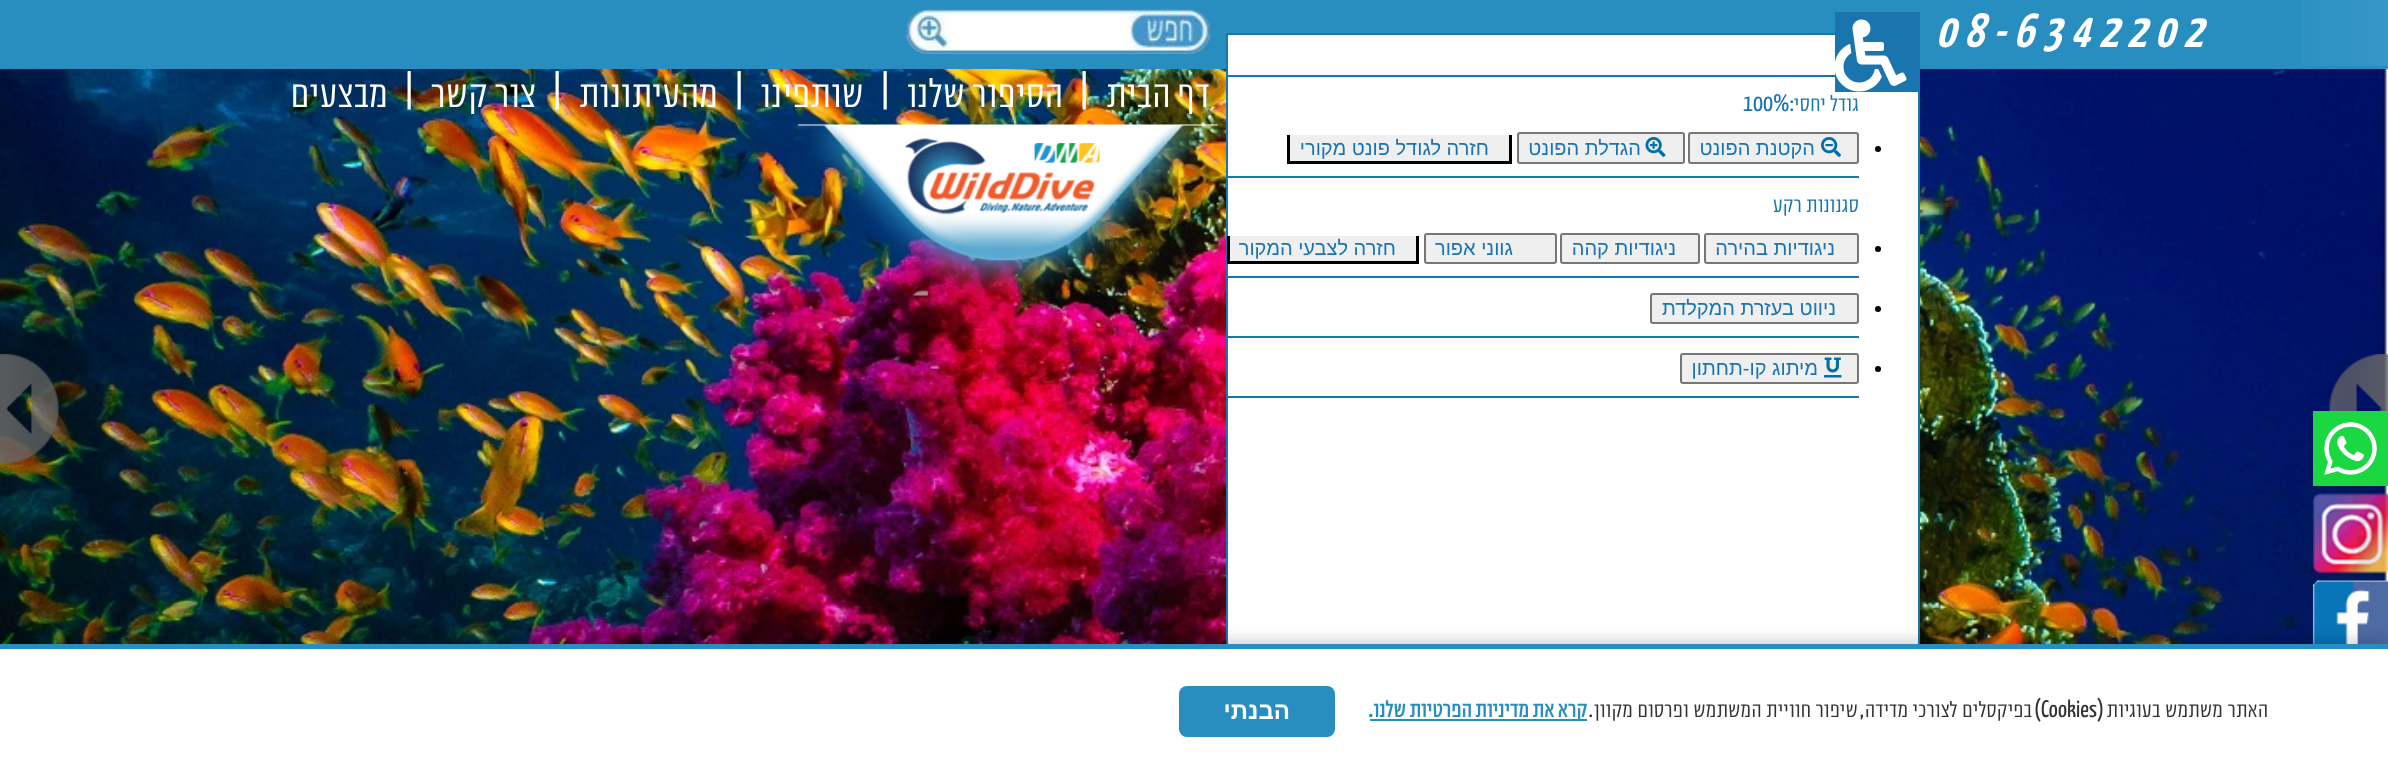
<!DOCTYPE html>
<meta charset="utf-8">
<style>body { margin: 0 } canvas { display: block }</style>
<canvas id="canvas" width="2388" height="773"></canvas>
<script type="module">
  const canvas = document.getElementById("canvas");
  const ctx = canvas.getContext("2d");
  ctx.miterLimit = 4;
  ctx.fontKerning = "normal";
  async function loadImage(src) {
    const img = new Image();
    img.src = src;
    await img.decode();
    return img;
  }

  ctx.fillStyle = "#ffffff";
  ctx.fillRect(0, 0, 2388, 773);
  ctx.fillStyle = "#288ec0";
  ctx.fillRect(0, 0, 2388, 69);
  ctx.drawImage(await loadImage("img1.png"), 2301, 0, 87, 66);
  ctx.letterSpacing = "9px";
  ctx.font = "italic bold 48px Yanone Kaffeesatz";
  ctx.fillStyle = "#ffffff";
  ctx.fillText("08-6342202", 1936, 47);
  ctx.drawImage(await loadImage("img2.png"), 905, 9, 306, 45);
  ctx.fillRect(951, 15, 174, 33);
  ctx.drawImage(await loadImage("img8.png"), 0, 69, 2388, 575);
  ctx.fillRect(1228, 35, 690, 609);
  ctx.strokeStyle = "#1a75ae";
  ctx.lineWidth = 2;
  ctx.strokeRect(1227, 34, 692, 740);
  ctx.fillStyle = "#1a75ae";
  ctx.fillRect(1835, 12, 85, 80);
  ctx.fillRect(1227, 75, 608, 2);
  ctx.drawImage(await loadImage("img3.png"), 1834, 19, 73, 73);
  ctx.letterSpacing = "0px";
  ctx.wordSpacing = "-2px";
  ctx.direction = "rtl";
  ctx.font = "100 24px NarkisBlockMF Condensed";
  ctx.fillText("גודל יחסי", 1859, 111);
  ctx.wordSpacing = "0px";
  ctx.font = "24px Yanone Kaffeesatz";
  ctx.fillText(":", 1794, 111);
  ctx.direction = "ltr";
  ctx.fillText("100%", 1743, 111);
  ctx.fillRect(1227, 176, 632, 2);
  ctx.fillStyle = "#000000";
  ctx.beginPath();
  ctx.arc(1878, 149, 3, 0, Math.PI * 2);
  ctx.fill();
  ctx.fillStyle = "#efefef";
  ctx.beginPath();
  ctx.roundRect(1689, 133, 169, 30, 2);
  ctx.fill();
  ctx.strokeStyle = "#767676";
  ctx.stroke();
  ctx.drawImage(await loadImage("img4.png"), 1821, 137, 20, 20);
  ctx.direction = "rtl";
  ctx.font = "20px Liberation Sans";
  ctx.fillStyle = "#1a75ae";
  ctx.fillText("הקטנת הפונט", 1815, 155);
  ctx.fillStyle = "#efefef";
  ctx.beginPath();
  ctx.roundRect(1518, 133, 166, 30, 2);
  ctx.fill();
  ctx.stroke();
  ctx.drawImage(await loadImage("img5.png"), 1645, 137, 21, 20);
  ctx.fillStyle = "#1a75ae";
  ctx.fillText("הגדלת הפונט", 1641, 155);
  ctx.fillStyle = "#efefef";
  ctx.fillRect(1290, 135, 219, 26);
  ctx.fillStyle = "#000000";
  ctx.fillRect(1509, 135, 3, 29);
  ctx.fillRect(1287, 161, 225, 3);
  ctx.fillRect(1287, 135, 3, 29);
  ctx.fillStyle = "#1a75ae";
  ctx.fillText("חזרה לגודל פונט מקורי", 1489, 155);
  ctx.wordSpacing = "-2px";
  ctx.font = "100 24px NarkisBlockMF Condensed";
  ctx.fillText("סגנונות רקע", 1859, 212);
  ctx.fillRect(1227, 276, 632, 2);
  ctx.fillStyle = "#000000";
  ctx.beginPath();
  ctx.arc(1878, 249, 3, 0, Math.PI * 2);
  ctx.fill();
  ctx.fillStyle = "#efefef";
  ctx.beginPath();
  ctx.roundRect(1705, 234, 153, 29, 2);
  ctx.fill();
  ctx.stroke();
  ctx.wordSpacing = "0px";
  ctx.font = "20px Liberation Sans";
  ctx.fillStyle = "#1a75ae";
  ctx.fillText("ניגודיות בהירה", 1835, 255);
  ctx.fillStyle = "#efefef";
  ctx.beginPath();
  ctx.roundRect(1561, 234, 138, 29, 2);
  ctx.fill();
  ctx.stroke();
  ctx.fillStyle = "#1a75ae";
  ctx.fillText("ניגודיות קהה", 1676, 255);
  ctx.fillStyle = "#efefef";
  ctx.beginPath();
  ctx.roundRect(1425, 234, 131, 29, 2);
  ctx.fill();
  ctx.stroke();
  ctx.fillStyle = "#1a75ae";
  ctx.fillText("גווני אפור", 1513, 255);
  ctx.fillStyle = "#efefef";
  ctx.fillRect(1230, 236, 186, 25);
  ctx.fillStyle = "#000000";
  ctx.fillRect(1416, 236, 3, 28);
  ctx.fillRect(1227, 261, 192, 3);
  ctx.fillRect(1227, 236, 3, 28);
  ctx.fillStyle = "#1a75ae";
  ctx.fillText("חזרה לצבעי המקור", 1396, 255);
  ctx.fillRect(1227, 336, 632, 2);
  ctx.fillStyle = "#000000";
  ctx.beginPath();
  ctx.arc(1878, 309, 3, 0, Math.PI * 2);
  ctx.fill();
  ctx.fillStyle = "#efefef";
  ctx.beginPath();
  ctx.roundRect(1651, 294, 207, 29, 2);
  ctx.fill();
  ctx.stroke();
  ctx.fillStyle = "#1a75ae";
  ctx.fillText("ניווט בעזרת המקלדת", 1836, 315);
  ctx.fillRect(1227, 396, 632, 2);
  ctx.fillStyle = "#000000";
  ctx.beginPath();
  ctx.arc(1878, 369, 3, 0, Math.PI * 2);
  ctx.fill();
  ctx.fillStyle = "#efefef";
  ctx.beginPath();
  ctx.roundRect(1681, 354, 177, 29, 2);
  ctx.fill();
  ctx.stroke();
  ctx.drawImage(await loadImage("img6.png"), 1824, 357, 18, 21);
  ctx.fillStyle = "#1a75ae";
  ctx.fillText("מיתוג קו-תחתון", 1818, 375);
  ctx.wordSpacing = "-4px";
  ctx.font = "100 43px NarkisBlockMF Condensed";
  ctx.fillStyle = "#ffffff";
  ctx.fillText("דף הבית", 1210, 107);
  ctx.wordSpacing = "0px";
  ctx.direction = "ltr";
  ctx.font = "38px Yanone Kaffeesatz";
  ctx.fillText("|", 1078, 102);
  ctx.wordSpacing = "-4px";
  ctx.direction = "rtl";
  ctx.font = "100 43px NarkisBlockMF Condensed";
  ctx.fillText("הסיפור שלנו", 1063, 107);
  ctx.wordSpacing = "0px";
  ctx.direction = "ltr";
  ctx.font = "38px Yanone Kaffeesatz";
  ctx.fillText("|", 879, 102);
  ctx.direction = "rtl";
  ctx.font = "100 43px NarkisBlockMF Condensed";
  ctx.fillText("שותפינו", 864, 107);
  ctx.direction = "ltr";
  ctx.font = "38px Yanone Kaffeesatz";
  ctx.fillText("|", 733, 102);
  ctx.direction = "rtl";
  ctx.font = "100 43px NarkisBlockMF Condensed";
  ctx.fillText("מהעיתונות", 718, 107);
  ctx.direction = "ltr";
  ctx.font = "38px Yanone Kaffeesatz";
  ctx.fillText("|", 551, 102);
  ctx.wordSpacing = "-4px";
  ctx.direction = "rtl";
  ctx.font = "100 43px NarkisBlockMF Condensed";
  ctx.fillText("צור קשר", 536, 107);
  ctx.wordSpacing = "0px";
  ctx.direction = "ltr";
  ctx.font = "38px Yanone Kaffeesatz";
  ctx.fillText("|", 403, 102);
  ctx.direction = "rtl";
  ctx.font = "100 43px NarkisBlockMF Condensed";
  ctx.fillText("מבצעים", 388, 107);
  ctx.drawImage(await loadImage("img7.png"), 797, 124, 421, 172);
  ctx.drawImage(await loadImage("img9.png"), 2329, 354, 59, 57);
  ctx.drawImage(await loadImage("img10.png"), 0, 354, 59, 110);
  ctx.drawImage(await loadImage("img11.png"), 2329, 354, 59, 57);
  ctx.drawImage(await loadImage("img12.png"), 0, 354, 59, 110);
  ctx.drawImage(await loadImage("img13.png"), 2313, 411, 75, 75);
  ctx.drawImage(await loadImage("img14.png"), 2313, 493, 75, 81);
  ctx.drawImage(await loadImage("img15.png"), 2313, 580, 75, 64);
  ctx.fillStyle = "rgba(0, 0, 0, 0.2)";
  ctx.filter = "blur(7.5px)";
  ctx.beginPath();
  ctx.rect(-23, 641, 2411, 130);
  ctx.fill();
  ctx.filter = "none";
  ctx.fillStyle = "#ffffff";
  ctx.fillRect(0, 649, 2388, 124);
  ctx.fillStyle = "#288ec0";
  ctx.fillRect(0, 644, 2388, 5);
  ctx.wordSpacing = "-1.5px";
  ctx.font = "100 24px NarkisBlockMF Condensed";
  ctx.fillStyle = "#333333";
  ctx.fillText("האתר משתמש בעוגיות", 2268, 717);
  ctx.wordSpacing = "0px";
  ctx.font = "24px Yanone Kaffeesatz";
  ctx.fillText("(", 2104, 717);
  ctx.direction = "ltr";
  ctx.fillText("Cookies", 2041, 717);
  ctx.direction = "rtl";
  ctx.fillText(")", 2041, 717);
  ctx.wordSpacing = "-1.5px";
  ctx.font = "100 24px NarkisBlockMF Condensed";
  ctx.fillText("בפיקסלים לצורכי מדידה", 2032, 717);
  ctx.fillText("שיפור חוויית המשתמש ופרסום מקוון", 1858, 717);
  ctx.fillStyle = "#288ec0";
  ctx.fillRect(1370, 719, 217, 2);
  ctx.wordSpacing = "0px";
  ctx.font = "24px Yanone Kaffeesatz";
  ctx.fillStyle = "#333333";
  ctx.fillText(".", 1593, 717);
  ctx.wordSpacing = "-2.5px";
  ctx.font = "bold 24px NarkisBlockMF Condensed";
  ctx.fillStyle = "#288ec0";
  ctx.fillText("קרא את מדיניות הפרטיות שלנו", 1587, 717);
  ctx.wordSpacing = "0px";
  ctx.font = "bold 24px Yanone Kaffeesatz";
  ctx.fillText(".", 1373, 717);
  ctx.beginPath();
  ctx.roundRect(1179, 686, 156, 51, 8);
  ctx.fill();
  ctx.font = "bold 24px Liberation Sans";
  ctx.fillStyle = "#ffffff";
  ctx.fillText("הבנתי", 1290, 719);
  ctx.font = "24px Yanone Kaffeesatz";
  ctx.fillStyle = "#333333";
  ctx.fillText(",", 1864, 717);
</script>
